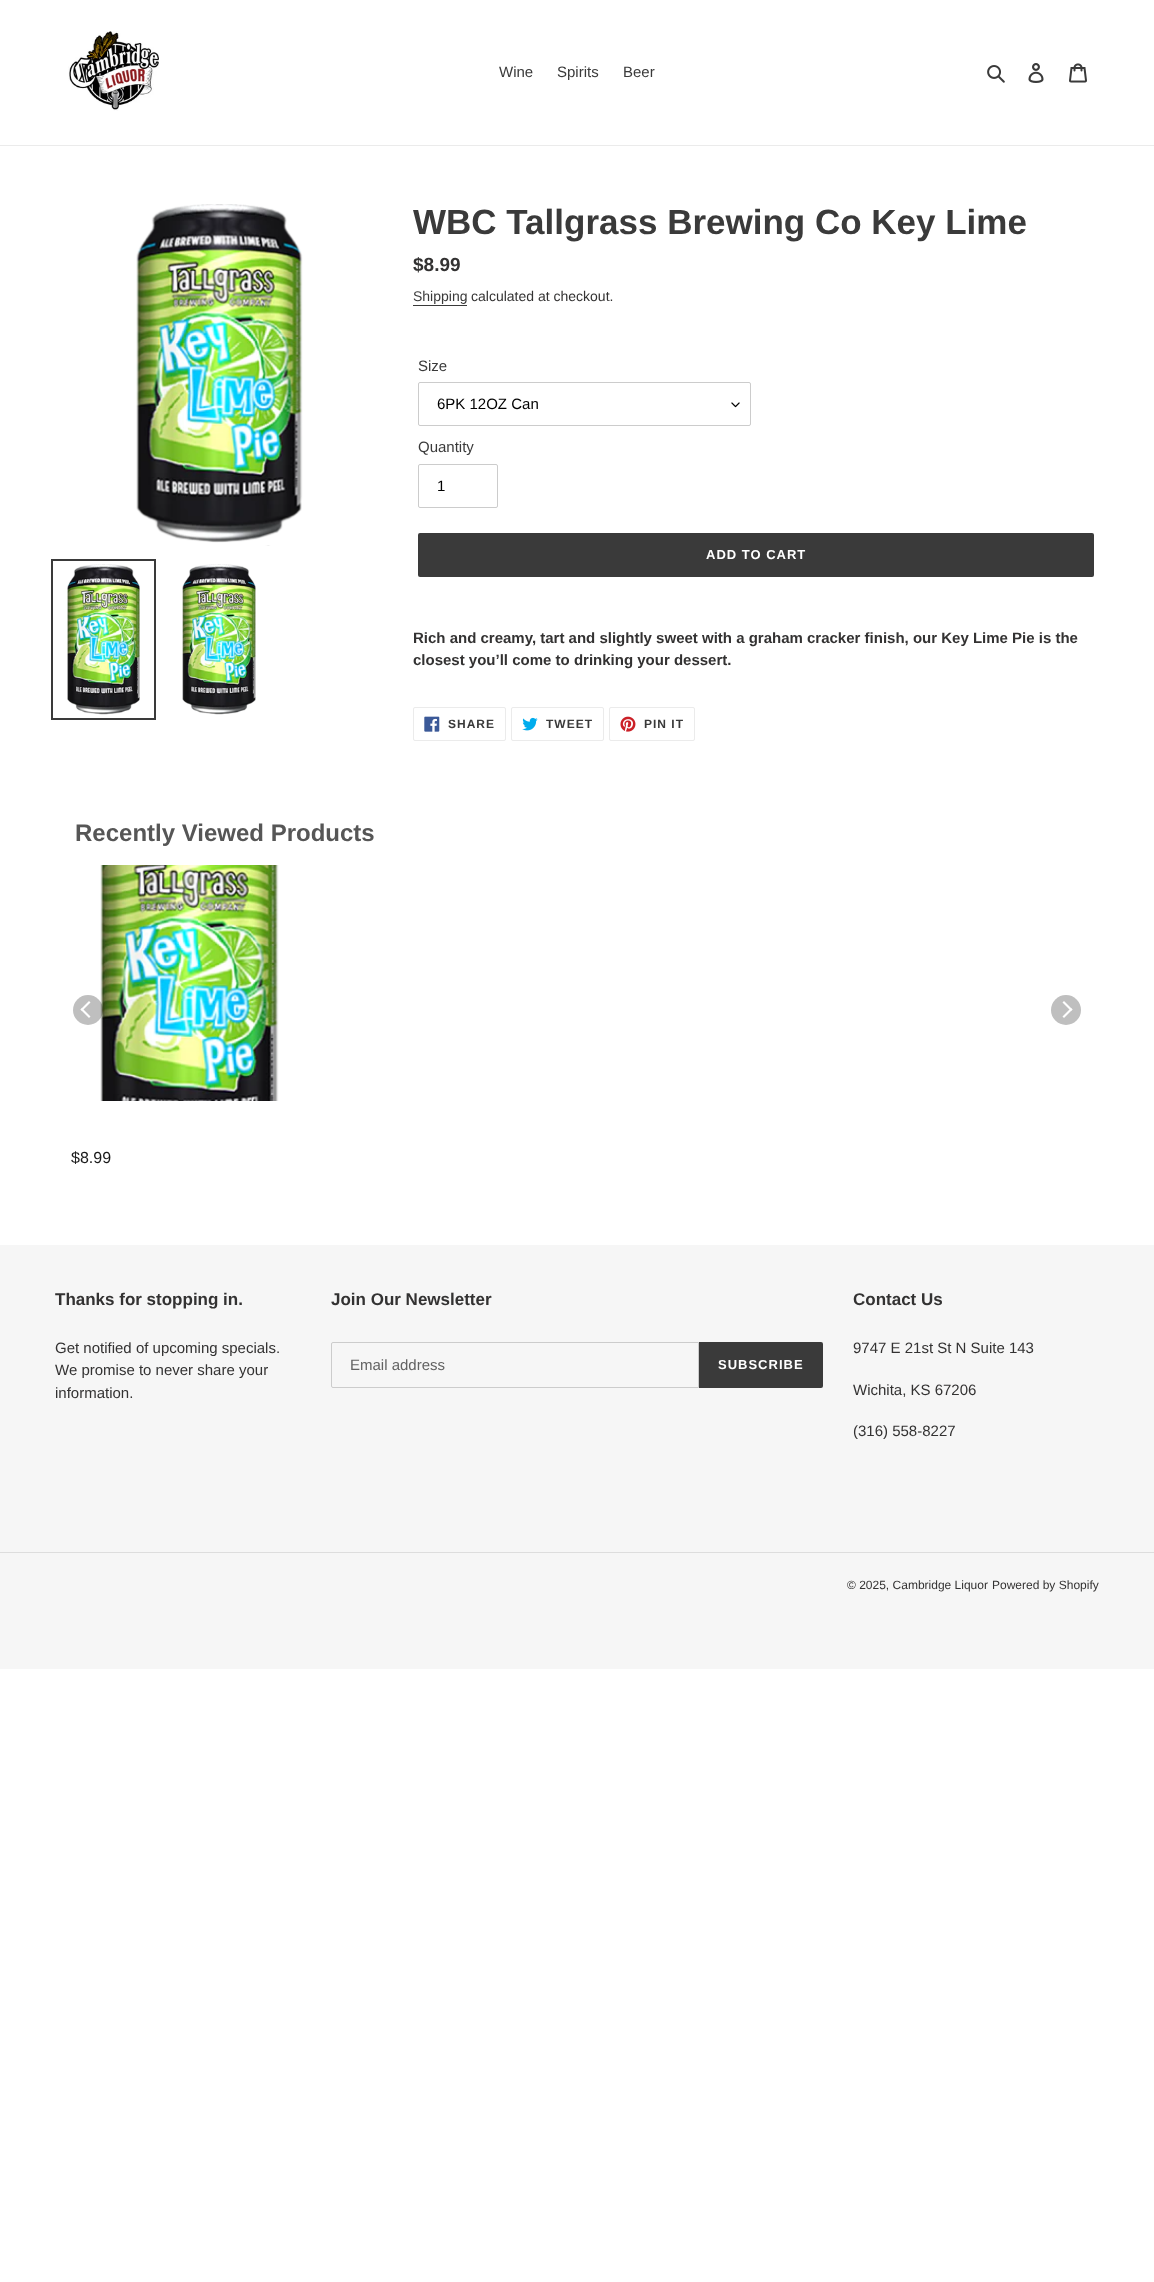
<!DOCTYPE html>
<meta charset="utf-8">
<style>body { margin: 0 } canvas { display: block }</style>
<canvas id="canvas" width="1154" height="2282"></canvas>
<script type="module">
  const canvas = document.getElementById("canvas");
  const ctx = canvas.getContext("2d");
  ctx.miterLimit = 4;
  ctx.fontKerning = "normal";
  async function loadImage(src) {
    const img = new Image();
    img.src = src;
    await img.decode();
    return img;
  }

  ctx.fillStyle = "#ffffff";
  ctx.fillRect(0, 0, 1154, 2282);
  ctx.fillStyle = "#ebebeb";
  ctx.fillRect(0, 145, 1154, 1);
  ctx.drawImage(await loadImage("img1.png"), 68, 31, 91, 80);
  ctx.font = "15px Liberation Sans";
  ctx.fillStyle = "#3a3a3a";
  ctx.fillText("Wine", 499, 77);
  ctx.fillText("Spirits", 557, 77);
  ctx.fillText("Beer", 623, 77);
  ctx.drawImage(await loadImage("img2.png"), 987, 65, 18, 18);
  ctx.drawImage(await loadImage("img3.png"), 1028, 63, 16, 20);
  ctx.drawImage(await loadImage("img4.png"), 1069, 63, 18, 20);
  ctx.drawImage(await loadImage("img5.png"), 136, 204, 167, 342);
  ctx.strokeStyle = "#3a3a3a";
  ctx.lineWidth = 2;
  ctx.strokeRect(52, 560, 103, 159);
  ctx.drawImage(await loadImage("img6.png"), 67, 564, 73, 151);
  ctx.drawImage(await loadImage("img7.png"), 182, 564, 74, 151);
  ctx.font = "bold 35px Liberation Sans";
  ctx.fillText("WBC Tallgrass Brewing Co Key Lime", 413, 234);
  ctx.font = "bold 19px Liberation Sans";
  ctx.fillStyle = "#333232";
  ctx.fillText("$8.99", 413, 271);
  ctx.font = "14px Liberation Sans";
  ctx.fillStyle = "#3a3a3a";
  ctx.fillText("Shipping", 413, 301);
  ctx.fillRect(413, 305, 54, 1);
  ctx.fillStyle = "#333232";
  ctx.fillText("calculated at checkout.", 471, 301);
  ctx.font = "15px Liberation Sans";
  ctx.fillStyle = "#3a3a3a";
  ctx.fillText("Size", 418, 371);
  ctx.drawImage(await loadImage("img8.png"), 731, 402, 9, 6);
  ctx.beginPath();
  ctx.roundRect(418.5, 382.5, 332, 43, 1.5);
  ctx.strokeStyle = "#cccccc";
  ctx.lineWidth = 1;
  ctx.stroke();
  ctx.fillStyle = "#000000";
  ctx.fillText("6PK 12OZ Can", 437, 409);
  ctx.fillStyle = "#3a3a3a";
  ctx.fillText("Quantity", 418, 452);
  ctx.beginPath();
  ctx.roundRect(418.5, 464.5, 79, 43, 1.5);
  ctx.stroke();
  ctx.fillStyle = "#000000";
  ctx.fillText("1", 437, 491);
  ctx.fillStyle = "#3a3a3a";
  ctx.beginPath();
  ctx.roundRect(418, 533, 676, 44, 2);
  ctx.fill();
  ctx.letterSpacing = "1px";
  ctx.font = "bold 13px Liberation Sans";
  ctx.fillStyle = "#ffffff";
  ctx.fillText("ADD TO CART", 706, 559);
  ctx.letterSpacing = "0px";
  ctx.font = "bold 15px Liberation Sans";
  ctx.fillStyle = "#333232";
  ctx.fillText("Rich and creamy, tart and slightly sweet with a graham cracker finish, our Key Lime Pie is the", 413, 643);
  ctx.fillText("closest you’ll come to drinking your dessert.", 413, 665);
  ctx.beginPath();
  ctx.roundRect(413.5, 707.5, 92, 33, 1.5);
  ctx.strokeStyle = "#ebebeb";
  ctx.stroke();
  ctx.drawImage(await loadImage("img9.png"), 424, 716, 16, 16);
  ctx.letterSpacing = "1px";
  ctx.font = "bold 12px Liberation Sans";
  ctx.fillStyle = "#3a3a3a";
  ctx.fillText("SHARE", 448, 728);
  ctx.beginPath();
  ctx.roundRect(511.5, 707.5, 92, 33, 1.5);
  ctx.stroke();
  ctx.drawImage(await loadImage("img10.png"), 522, 717, 16, 14);
  ctx.fillText("TWEET", 546, 728);
  ctx.beginPath();
  ctx.roundRect(609.5, 707.5, 85, 33, 1.5);
  ctx.stroke();
  ctx.drawImage(await loadImage("img11.png"), 620, 716, 16, 16);
  ctx.fillText("PIN IT", 644, 728);
  ctx.letterSpacing = "0px";
  ctx.font = "bold 24px Liberation Sans";
  ctx.fillStyle = "#565656";
  ctx.fillText("Recently Viewed Products", 75, 841);
  ctx.drawImage(await loadImage("img12.png"), 100, 865, 179, 236);
  ctx.fillStyle = "rgba(0, 0, 0, 0.25)";
  ctx.beginPath();
  ctx.arc(88, 1010, 15, 0, Math.PI * 2);
  ctx.fill();
  ctx.fillStyle = "#ffffff";
  ctx.beginPath();
  ctx.moveTo(82, 1008);
  ctx.lineTo(90.5, 1016.5);
  ctx.lineTo(89, 1018);
  ctx.lineTo(80.5, 1009.5);
  ctx.closePath();
  ctx.fill();
  ctx.beginPath();
  ctx.moveTo(89, 1001);
  ctx.lineTo(90.5, 1002.5);
  ctx.lineTo(82, 1011);
  ctx.lineTo(80.5, 1009.5);
  ctx.closePath();
  ctx.fill();
  ctx.fillStyle = "#bfbfbf";
  ctx.beginPath();
  ctx.arc(1066, 1010, 15, 0, Math.PI * 2);
  ctx.fill();
  ctx.fillStyle = "#ffffff";
  ctx.beginPath();
  ctx.moveTo(1071, 1011);
  ctx.lineTo(1062.5, 1002.5);
  ctx.lineTo(1064, 1001);
  ctx.lineTo(1072.5, 1009.5);
  ctx.closePath();
  ctx.fill();
  ctx.beginPath();
  ctx.moveTo(1064, 1018);
  ctx.lineTo(1062.5, 1016.5);
  ctx.lineTo(1071, 1008);
  ctx.lineTo(1072.5, 1009.5);
  ctx.closePath();
  ctx.fill();
  ctx.font = "16px Liberation Sans";
  ctx.fillStyle = "#1a1a1a";
  ctx.fillText("$8.99", 71, 1163);
  ctx.fillStyle = "#f6f6f6";
  ctx.fillRect(0, 1245, 1154, 424);
  ctx.font = "bold 17px Liberation Sans";
  ctx.fillStyle = "#333232";
  ctx.fillText("Thanks for stopping in.", 55, 1305);
  ctx.font = "15px Liberation Sans";
  ctx.fillText("Get notified of upcoming specials.", 55, 1353);
  ctx.fillText("We promise to never share your", 55, 1375);
  ctx.fillText("information.", 55, 1398);
  ctx.font = "bold 17px Liberation Sans";
  ctx.fillText("Join Our Newsletter", 331, 1305);
  ctx.beginPath();
  ctx.roundRect(331.5, 1342.5, 367, 45, [1.5, 0, 0, 1.5]);
  ctx.strokeStyle = "#cccccc";
  ctx.stroke();
  ctx.font = "15px Liberation Sans";
  ctx.fillStyle = "#626262";
  ctx.fillText("Email address", 350, 1370);
  ctx.fillStyle = "#3a3a3a";
  ctx.beginPath();
  ctx.roundRect(699, 1342, 124, 46, [0, 2, 2, 0]);
  ctx.fill();
  ctx.letterSpacing = "1px";
  ctx.font = "bold 13px Liberation Sans";
  ctx.fillStyle = "#ffffff";
  ctx.fillText("SUBSCRIBE", 718, 1369);
  ctx.letterSpacing = "0px";
  ctx.font = "bold 17px Liberation Sans";
  ctx.fillStyle = "#333232";
  ctx.fillText("Contact Us", 853, 1305);
  ctx.font = "15px Liberation Sans";
  ctx.fillText("9747 E 21st St N Suite 143", 853, 1353);
  ctx.fillText("Wichita, KS 67206", 853, 1395);
  ctx.fillText("(316) 558-8227", 853, 1436);
  ctx.fillStyle = "#dddddd";
  ctx.fillRect(0, 1552, 1154, 1);
  ctx.font = "12px Liberation Sans";
  ctx.fillStyle = "#333232";
  ctx.fillText("© 2025, Cambridge Liquor", 847, 1589);
  ctx.fillText("Powered by Shopify", 992, 1589);
</script>
